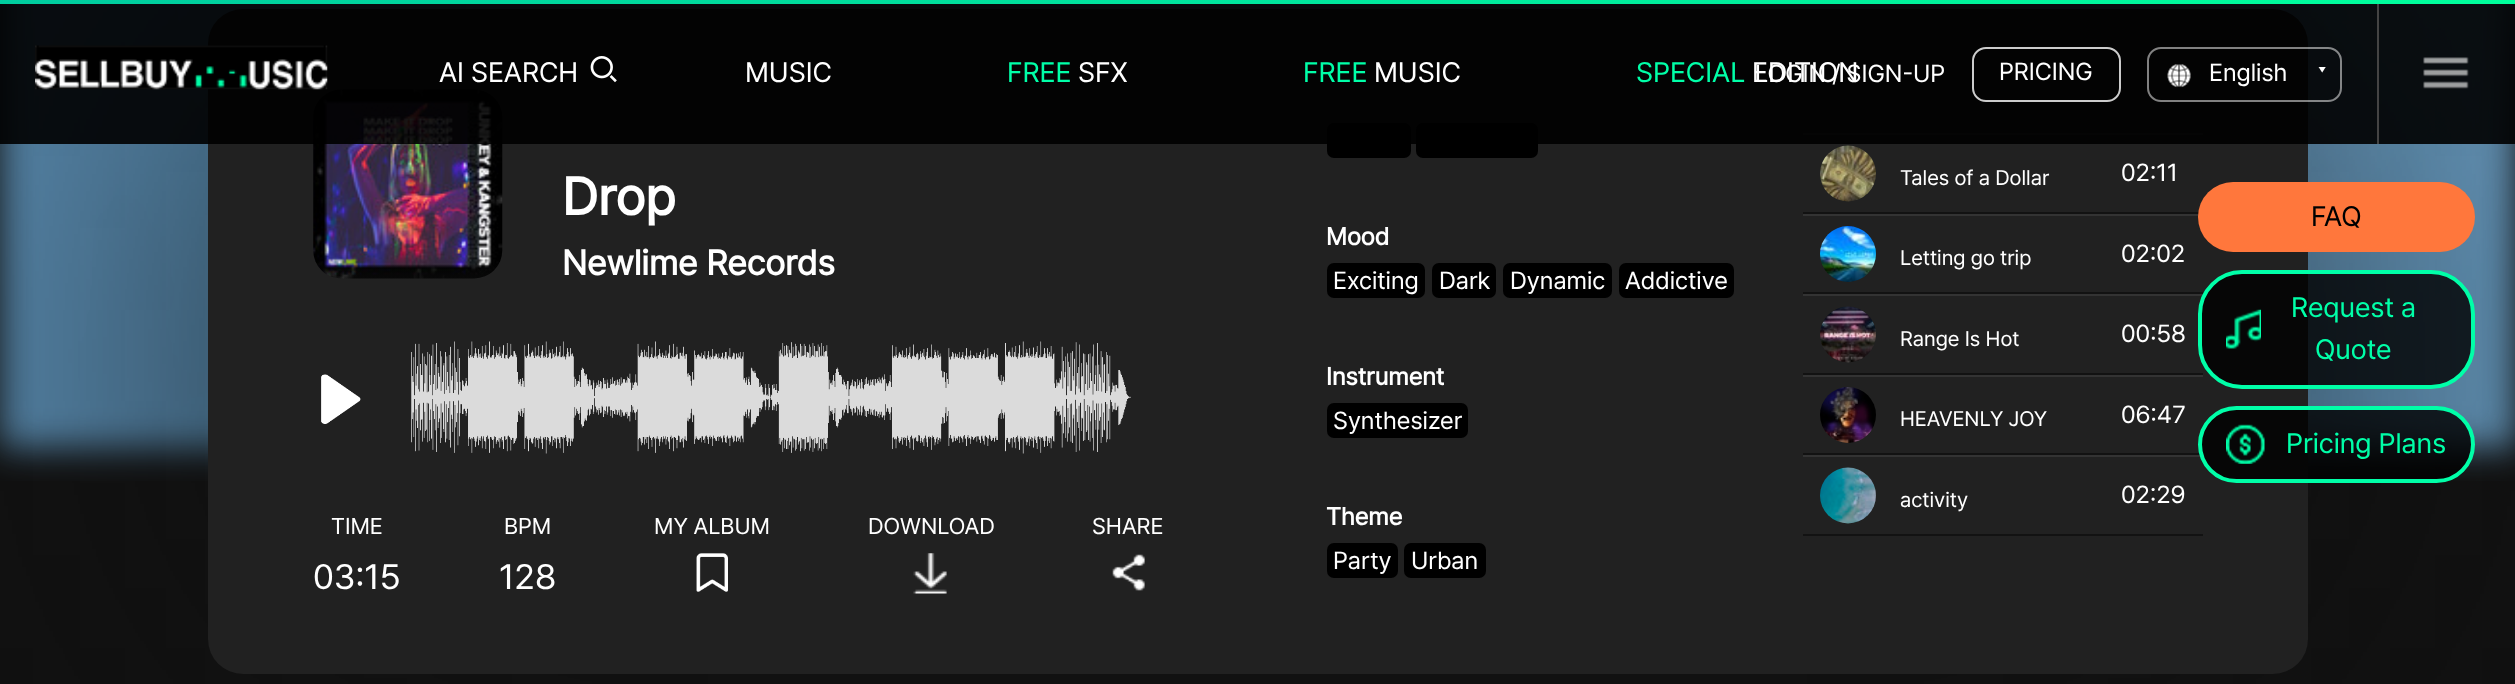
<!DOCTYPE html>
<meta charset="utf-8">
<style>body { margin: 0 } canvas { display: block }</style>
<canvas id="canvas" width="2515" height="684"></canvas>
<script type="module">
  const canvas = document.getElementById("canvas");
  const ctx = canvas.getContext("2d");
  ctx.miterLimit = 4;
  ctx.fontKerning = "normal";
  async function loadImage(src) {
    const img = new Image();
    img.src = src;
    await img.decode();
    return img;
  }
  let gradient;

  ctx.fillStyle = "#111111";
  ctx.fillRect(0, 0, 2515, 684);
  ctx.drawImage(await loadImage("img5.png"), 0, 4, 2515, 477);
  ctx.filter = "blur(262.5px)";
  ctx.beginPath();
  ctx.rect(243, 58, 2030, 595);
  ctx.fill();
  ctx.filter = "none";
  gradient = ctx.createLinearGradient(0, 1.8, 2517, 1.7);
  gradient.addColorStop(0, "#00cd9f");
  gradient.addColorStop(1, "#00ff9c");
  ctx.fillStyle = gradient;
  ctx.fillRect(0, 0, 2515, 4);
  ctx.fillStyle = "#212121";
  ctx.beginPath();
  ctx.roundRect(208, 9, 2100, 665, 35);
  ctx.fill();
  ctx.drawImage(await loadImage("img6.png"), 313, 89, 190, 190);
  gradient = ctx.createLinearGradient(408, 334, 408, 89);
  gradient.addColorStop(0, "#212121");
  gradient.addColorStop(0.3, "rgba(33, 33, 33, 0)");
  gradient.addColorStop(1, "rgba(0, 0, 0, 0)");
  ctx.fillStyle = gradient;
  ctx.beginPath();
  ctx.roundRect(285, 89, 245, 245, 28);
  ctx.fill();
  ctx.fillStyle = "#000000";
  ctx.beginPath();
  ctx.roundRect(1327, 123, 84, 35, 7);
  ctx.fill();
  ctx.beginPath();
  ctx.roundRect(1416, 123, 122, 35, 7);
  ctx.fill();
  ctx.fillStyle = "#333333";
  ctx.fillRect(1803, 133, 400, 2);
  ctx.fillStyle = "rgba(0, 0, 0, 0.9)";
  ctx.fillRect(0, 4, 2515, 140);
  ctx.drawImage(await loadImage("img1.png"), 35, 45, 293, 45);
  ctx.font = "28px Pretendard";
  ctx.fillStyle = "#ffffff";
  ctx.fillText("AI SEARCH", 439, 82);
  ctx.drawImage(await loadImage("img2.png"), 590, 56, 27, 27);
  ctx.fillText("MUSIC", 745, 82);
  ctx.fillStyle = "#00ffa8";
  ctx.fillText("FREE", 1007, 82);
  ctx.fillStyle = "#ffffff";
  ctx.fillText("SFX", 1078, 82);
  ctx.fillStyle = "#00ffa8";
  ctx.fillText("FREE", 1303, 82);
  ctx.fillStyle = "#ffffff";
  ctx.fillText("MUSIC", 1374, 82);
  ctx.fillStyle = "#00ffa8";
  ctx.fillText("SPECIAL", 1636, 82);
  ctx.fillStyle = "#ffffff";
  ctx.fillText("EDITION", 1752, 82);
  ctx.font = "24.5px Pretendard";
  ctx.fillText("LOGIN / SIGN-UP", 1755, 82);
  ctx.beginPath();
  ctx.roundRect(1973, 48, 147, 53, 13);
  ctx.strokeStyle = "#cccccc";
  ctx.lineWidth = 2;
  ctx.stroke();
  ctx.fillText("PRICING", 1999, 80);
  ctx.beginPath();
  ctx.roundRect(2148, 48, 193, 53, 13);
  ctx.strokeStyle = "rgba(255, 255, 255, 0.5)";
  ctx.stroke();
  ctx.drawImage(await loadImage("img3.png"), 2167, 64, 24, 24);
  ctx.fillText("English", 2209, 81);
  ctx.font = "9px Dotum";
  ctx.fillText("▼", 2318, 73);
  ctx.drawImage(await loadImage("img4.png"), 2423, 57, 46, 32);
  ctx.fillStyle = "#444444";
  ctx.fillRect(2377, 4, 2, 140);
  ctx.font = "bold 52.5px Pretendard";
  ctx.fillStyle = "#ffffff";
  ctx.fillText("Drop", 562, 215);
  ctx.font = "bold 35px Pretendard";
  ctx.fillText("Newlime Records", 562, 275);
  ctx.drawImage(await loadImage("img7.png"), 321, 374, 40, 50);
  ctx.drawImage(await loadImage("img8.png"), 411, 341, 720, 113);
  ctx.font = "22.75px Pretendard";
  ctx.fillText("TIME", 331, 534);
  ctx.font = "35px Pretendard";
  ctx.fillText("03:15", 313, 589);
  ctx.font = "22.75px Pretendard";
  ctx.fillText("BPM", 504, 534);
  ctx.font = "35px Pretendard";
  ctx.fillText("128", 499, 589);
  ctx.font = "22.75px Pretendard";
  ctx.fillText("MY ALBUM", 654, 534);
  ctx.drawImage(await loadImage("img9.png"), 696, 553, 32, 39);
  ctx.fillText("DOWNLOAD", 868, 534);
  ctx.drawImage(await loadImage("img10.png"), 913, 553, 34, 41);
  ctx.fillText("SHARE", 1092, 534);
  ctx.drawImage(await loadImage("img11.png"), 1112, 554, 33, 37);
  ctx.font = "bold 24.5px Pretendard";
  ctx.fillText("Mood", 1326, 245);
  ctx.fillStyle = "#000000";
  ctx.beginPath();
  ctx.roundRect(1327, 263, 98, 35, 7);
  ctx.fill();
  ctx.font = "24.5px Pretendard";
  ctx.fillStyle = "#ffffff";
  ctx.fillText("Exciting", 1333, 289);
  ctx.fillStyle = "#000000";
  ctx.beginPath();
  ctx.roundRect(1432, 263, 64, 35, 7);
  ctx.fill();
  ctx.fillStyle = "#ffffff";
  ctx.fillText("Dark", 1439, 289);
  ctx.fillStyle = "#000000";
  ctx.beginPath();
  ctx.roundRect(1503, 263, 109, 35, 7);
  ctx.fill();
  ctx.fillStyle = "#ffffff";
  ctx.fillText("Dynamic", 1510, 289);
  ctx.fillStyle = "#000000";
  ctx.beginPath();
  ctx.roundRect(1619, 263, 115, 35, 7);
  ctx.fill();
  ctx.fillStyle = "#ffffff";
  ctx.fillText("Addictive", 1625, 289);
  ctx.font = "bold 24.5px Pretendard";
  ctx.fillText("Instrument", 1326, 385);
  ctx.fillStyle = "#000000";
  ctx.beginPath();
  ctx.roundRect(1327, 403, 141, 35, 7);
  ctx.fill();
  ctx.font = "24.5px Pretendard";
  ctx.fillStyle = "#ffffff";
  ctx.fillText("Synthesizer", 1333, 429);
  ctx.font = "bold 24.5px Pretendard";
  ctx.fillText("Theme", 1326, 525);
  ctx.fillStyle = "#000000";
  ctx.beginPath();
  ctx.roundRect(1327, 543, 71, 35, 7);
  ctx.fill();
  ctx.font = "24.5px Pretendard";
  ctx.fillStyle = "#ffffff";
  ctx.fillText("Party", 1333, 569);
  ctx.fillStyle = "#000000";
  ctx.beginPath();
  ctx.roundRect(1404, 543, 82, 35, 7);
  ctx.fill();
  ctx.fillStyle = "#ffffff";
  ctx.fillText("Urban", 1411, 569);
  ctx.fillStyle = "#121212";
  ctx.fillRect(1803, 212, 400, 2);
  ctx.drawImage(await loadImage("img12.png"), 1820, 145, 56, 57);
  ctx.font = "21px Pretendard";
  ctx.fillStyle = "#ffffff";
  ctx.fillText("Tales of a Dollar", 1900, 185);
  ctx.font = "24.5px Pretendard";
  ctx.fillText("02:11", 2121, 181);
  ctx.fillStyle = "#333333";
  ctx.fillRect(1803, 214, 400, 2);
  ctx.fillStyle = "#121212";
  ctx.fillRect(1803, 292, 400, 2);
  ctx.drawImage(await loadImage("img13.png"), 1820, 226, 56, 56);
  ctx.font = "21px Pretendard";
  ctx.fillStyle = "#ffffff";
  ctx.fillText("Letting go trip", 1900, 265);
  ctx.font = "24.5px Pretendard";
  ctx.fillText("02:02", 2121, 262);
  ctx.fillStyle = "#333333";
  ctx.fillRect(1803, 294, 400, 2);
  ctx.fillStyle = "#121212";
  ctx.fillRect(1803, 373, 400, 2);
  ctx.drawImage(await loadImage("img14.png"), 1820, 306, 56, 57);
  ctx.font = "21px Pretendard";
  ctx.fillStyle = "#ffffff";
  ctx.fillText("Range Is Hot", 1900, 346);
  ctx.font = "24.5px Pretendard";
  ctx.fillText("00:58", 2121, 342);
  ctx.fillStyle = "#333333";
  ctx.fillRect(1803, 375, 400, 2);
  ctx.fillStyle = "#121212";
  ctx.fillRect(1803, 453, 400, 2);
  ctx.drawImage(await loadImage("img15.png"), 1820, 387, 56, 56);
  ctx.font = "21px Pretendard";
  ctx.fillStyle = "#ffffff";
  ctx.fillText("HEAVENLY JOY", 1900, 426);
  ctx.font = "24.5px Pretendard";
  ctx.fillText("06:47", 2121, 423);
  ctx.fillStyle = "#333333";
  ctx.fillRect(1803, 455, 400, 2);
  ctx.fillStyle = "#121212";
  ctx.fillRect(1803, 534, 400, 2);
  ctx.drawImage(await loadImage("img16.png"), 1820, 467, 56, 57);
  ctx.font = "21px Pretendard";
  ctx.fillStyle = "#ffffff";
  ctx.fillText("activity", 1900, 507);
  ctx.font = "24.5px Pretendard";
  ctx.fillText("02:29", 2121, 503);
  ctx.fillStyle = "#ff773c";
  ctx.beginPath();
  ctx.roundRect(2198, 182, 277, 70, 35);
  ctx.fill();
  ctx.font = "28px Pretendard";
  ctx.fillStyle = "#000000";
  ctx.fillText("FAQ", 2311, 226);
  ctx.fillStyle = "rgba(0, 0, 0, 0.8)";
  ctx.beginPath();
  ctx.roundRect(2200, 272, 273, 115, 42);
  ctx.fill();
  ctx.strokeStyle = "#00ffa8";
  ctx.lineWidth = 4;
  ctx.stroke();
  ctx.drawImage(await loadImage("img17.png"), 2226, 309, 35, 40);
  ctx.fillStyle = "#00ffa8";
  ctx.fillText("Request a", 2291, 317);
  ctx.fillText("Quote", 2315, 359);
  ctx.fillStyle = "rgba(0, 0, 0, 0.8)";
  ctx.beginPath();
  ctx.roundRect(2200, 408, 273, 73, 36.5);
  ctx.fill();
  ctx.stroke();
  ctx.drawImage(await loadImage("img18.png"), 2226, 424, 39, 40);
  ctx.fillStyle = "#00ffa8";
  ctx.fillText("Pricing Plans", 2286, 453);
</script>
